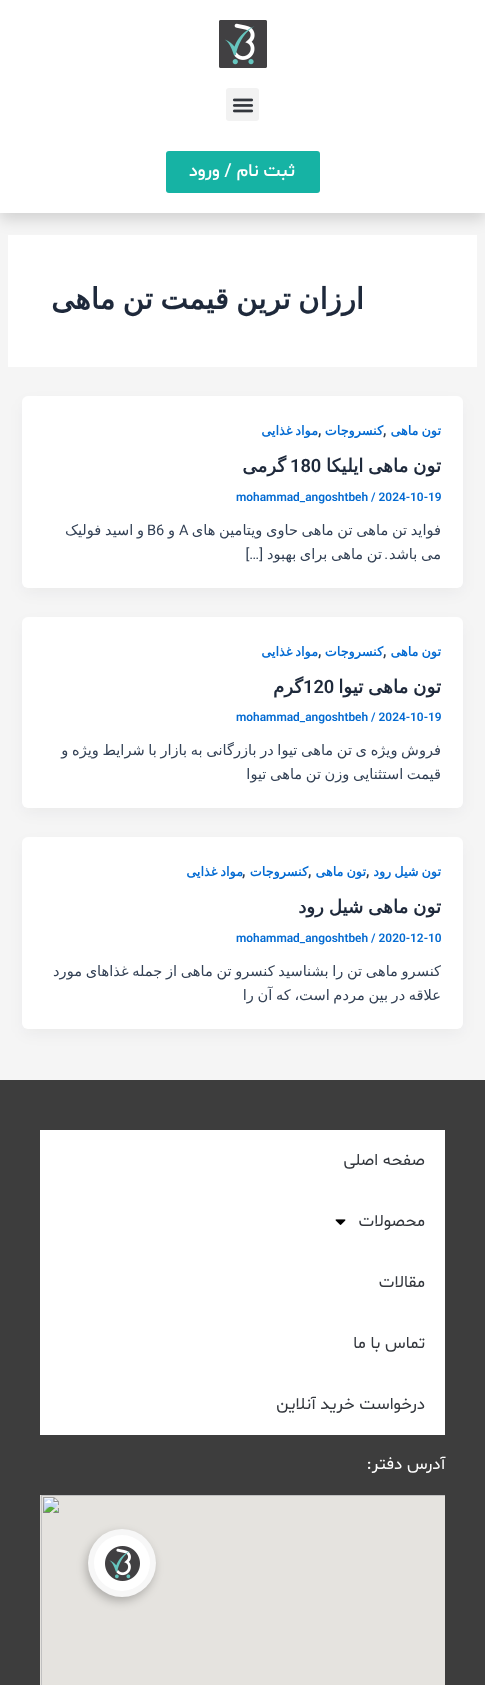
<!DOCTYPE html>
<meta charset="utf-8">
<style>body { margin: 0 } canvas { display: block }</style>
<canvas id="canvas" width="485" height="1685"></canvas>
<script type="module">
  const canvas = document.getElementById("canvas");
  const ctx = canvas.getContext("2d");
  ctx.miterLimit = 4;
  ctx.fontKerning = "normal";
  async function loadImage(src) {
    const img = new Image();
    img.src = src;
    await img.decode();
    return img;
  }

  ctx.fillStyle = "#f5f5f5";
  ctx.fillRect(0, 0, 485, 1685);
  ctx.fillStyle = "#ffffff";
  ctx.fillRect(8, 235, 469, 132);
  ctx.fillStyle = "rgba(0, 0, 0, 0.15)";
  ctx.filter = "blur(7.5px)";
  ctx.beginPath();
  ctx.rect(0, 6, 485, 213);
  ctx.fill();
  ctx.filter = "none";
  ctx.fillStyle = "#ffffff";
  ctx.fillRect(0, 0, 485, 213);
  ctx.drawImage(await loadImage("img1.png"), 219, 20, 48, 48);
  ctx.fillStyle = "#f2f2f2";
  ctx.beginPath();
  ctx.roundRect(226, 88, 33, 33, 3);
  ctx.fill();
  ctx.drawImage(await loadImage("img2.png"), 232, 98, 22, 15);
  ctx.fillStyle = "#16b3a4";
  ctx.beginPath();
  ctx.roundRect(166, 151, 154, 42, 3);
  ctx.fill();
  ctx.direction = "rtl";
  ctx.font = "500 18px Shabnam";
  ctx.fillStyle = "#ffffff";
  ctx.fillText("ثبت نام / ورود", 295, 176);
  ctx.wordSpacing = "-2px";
  ctx.font = "bold 29.25px DejaVu Sans";
  ctx.fillStyle = "#1e293b";
  ctx.fillText("ارزان ترین قیمت تن ماهی", 364, 309);
  ctx.fillStyle = "rgba(16, 24, 40, 0.05)";
  ctx.filter = "blur(7.5px)";
  ctx.beginPath();
  ctx.roundRect(24, 404, 437, 188, 4);
  ctx.fill();
  ctx.filter = "none";
  ctx.fillStyle = "#ffffff";
  ctx.beginPath();
  ctx.roundRect(22, 396, 441, 192, 6);
  ctx.fill();
  ctx.wordSpacing = "-1px";
  ctx.font = "bold 12.75px DejaVu Sans";
  ctx.fillStyle = "#046bd2";
  ctx.fillText("تون ماهی", 441, 435);
  ctx.wordSpacing = "0px";
  ctx.direction = "ltr";
  ctx.font = "600 14.6px Roboto";
  ctx.fillStyle = "#334155";
  ctx.fillText(",", 383, 435);
  ctx.direction = "rtl";
  ctx.font = "bold 12.75px DejaVu Sans";
  ctx.fillStyle = "#046bd2";
  ctx.fillText("کنسروجات", 383, 435);
  ctx.direction = "ltr";
  ctx.font = "600 14.6px Roboto";
  ctx.fillStyle = "#334155";
  ctx.fillText(",", 318, 435);
  ctx.wordSpacing = "-1px";
  ctx.direction = "rtl";
  ctx.font = "bold 12.75px DejaVu Sans";
  ctx.fillStyle = "#046bd2";
  ctx.fillText("مواد غذایی", 318, 435);
  ctx.font = "bold 18.25px DejaVu Sans";
  ctx.fillStyle = "#1e293b";
  ctx.fillText("تون ماهی ایلیکا", 441, 472);
  ctx.wordSpacing = "0px";
  ctx.direction = "ltr";
  ctx.font = "600 18.25px Roboto";
  ctx.fillText("180", 290, 472);
  ctx.direction = "rtl";
  ctx.font = "bold 18.25px DejaVu Sans";
  ctx.fillText("گرمی", 286, 472);
  ctx.direction = "ltr";
  ctx.font = "600 11.9px Roboto";
  ctx.fillStyle = "#046bd2";
  ctx.fillText("mohammad_angoshtbeh / 2024-10-19", 236, 501);
  ctx.wordSpacing = "-1px";
  ctx.direction = "rtl";
  ctx.font = "14.6px DejaVu Sans";
  ctx.fillStyle = "#334155";
  ctx.fillText("فواید تن ماهی تن ماهی حاوی ویتامین های", 441, 535);
  ctx.wordSpacing = "0px";
  ctx.direction = "ltr";
  ctx.font = "14.6px Roboto";
  ctx.fillText("A", 179, 535);
  ctx.direction = "rtl";
  ctx.font = "14.6px DejaVu Sans";
  ctx.fillText("و", 175, 535);
  ctx.direction = "ltr";
  ctx.font = "14.6px Roboto";
  ctx.fillText("B6", 147, 535);
  ctx.wordSpacing = "-1px";
  ctx.direction = "rtl";
  ctx.font = "14.6px DejaVu Sans";
  ctx.fillText("و اسید فولیک", 144, 535);
  ctx.fillText("می باشد", 441, 559);
  ctx.wordSpacing = "0px";
  ctx.font = "14.6px Roboto";
  ctx.fillText(".", 388, 559);
  ctx.wordSpacing = "-1px";
  ctx.font = "14.6px DejaVu Sans";
  ctx.fillText("تن ماهی برای بهبود", 382, 559);
  ctx.wordSpacing = "0px";
  ctx.font = "14.6px Roboto";
  ctx.fillText("[…]", 263, 559);
  ctx.fillStyle = "rgba(16, 24, 40, 0.05)";
  ctx.filter = "blur(7.5px)";
  ctx.beginPath();
  ctx.roundRect(24, 625, 437, 187, 4);
  ctx.fill();
  ctx.filter = "none";
  ctx.fillStyle = "#ffffff";
  ctx.beginPath();
  ctx.roundRect(22, 617, 441, 191, 6);
  ctx.fill();
  ctx.wordSpacing = "-1px";
  ctx.font = "bold 12.75px DejaVu Sans";
  ctx.fillStyle = "#046bd2";
  ctx.fillText("تون ماهی", 441, 656);
  ctx.wordSpacing = "0px";
  ctx.direction = "ltr";
  ctx.font = "600 14.6px Roboto";
  ctx.fillStyle = "#334155";
  ctx.fillText(",", 383, 656);
  ctx.direction = "rtl";
  ctx.font = "bold 12.75px DejaVu Sans";
  ctx.fillStyle = "#046bd2";
  ctx.fillText("کنسروجات", 383, 656);
  ctx.direction = "ltr";
  ctx.font = "600 14.6px Roboto";
  ctx.fillStyle = "#334155";
  ctx.fillText(",", 318, 656);
  ctx.wordSpacing = "-1px";
  ctx.direction = "rtl";
  ctx.font = "bold 12.75px DejaVu Sans";
  ctx.fillStyle = "#046bd2";
  ctx.fillText("مواد غذایی", 318, 656);
  ctx.font = "bold 18.25px DejaVu Sans";
  ctx.fillStyle = "#1e293b";
  ctx.fillText("تون ماهی تیوا", 441, 693);
  ctx.wordSpacing = "0px";
  ctx.direction = "ltr";
  ctx.font = "600 18.25px Roboto";
  ctx.fillText("120", 303, 693);
  ctx.direction = "rtl";
  ctx.font = "bold 18.25px DejaVu Sans";
  ctx.fillText("گرم", 303, 693);
  ctx.direction = "ltr";
  ctx.font = "600 11.9px Roboto";
  ctx.fillStyle = "#046bd2";
  ctx.fillText("mohammad_angoshtbeh / 2024-10-19", 236, 721);
  ctx.wordSpacing = "-1px";
  ctx.direction = "rtl";
  ctx.font = "14.6px DejaVu Sans";
  ctx.fillStyle = "#334155";
  ctx.fillText("فروش ویژه ی تن ماهی تیوا در بازرگانی به بازار با شرایط ویژه و", 441, 755);
  ctx.fillText("قیمت استثنایی وزن تن ماهی تیوا", 441, 779);
  ctx.fillStyle = "rgba(16, 24, 40, 0.05)";
  ctx.filter = "blur(7.5px)";
  ctx.beginPath();
  ctx.roundRect(24, 845, 437, 188, 4);
  ctx.fill();
  ctx.filter = "none";
  ctx.fillStyle = "#ffffff";
  ctx.beginPath();
  ctx.roundRect(22, 837, 441, 192, 6);
  ctx.fill();
  ctx.font = "bold 12.75px DejaVu Sans";
  ctx.fillStyle = "#046bd2";
  ctx.fillText("تون شیل رود", 441, 876);
  ctx.wordSpacing = "0px";
  ctx.direction = "ltr";
  ctx.font = "600 14.6px Roboto";
  ctx.fillStyle = "#334155";
  ctx.fillText(",", 366, 876);
  ctx.wordSpacing = "-1px";
  ctx.direction = "rtl";
  ctx.font = "bold 12.75px DejaVu Sans";
  ctx.fillStyle = "#046bd2";
  ctx.fillText("تون ماهی", 366, 876);
  ctx.wordSpacing = "0px";
  ctx.direction = "ltr";
  ctx.font = "600 14.6px Roboto";
  ctx.fillStyle = "#334155";
  ctx.fillText(",", 308, 876);
  ctx.direction = "rtl";
  ctx.font = "bold 12.75px DejaVu Sans";
  ctx.fillStyle = "#046bd2";
  ctx.fillText("کنسروجات", 308, 876);
  ctx.direction = "ltr";
  ctx.font = "600 14.6px Roboto";
  ctx.fillStyle = "#334155";
  ctx.fillText(",", 242, 876);
  ctx.wordSpacing = "-1px";
  ctx.direction = "rtl";
  ctx.font = "bold 12.75px DejaVu Sans";
  ctx.fillStyle = "#046bd2";
  ctx.fillText("مواد غذایی", 243, 876);
  ctx.font = "bold 18.25px DejaVu Sans";
  ctx.fillStyle = "#1e293b";
  ctx.fillText("تون ماهی شیل رود", 441, 913);
  ctx.wordSpacing = "0px";
  ctx.direction = "ltr";
  ctx.font = "600 11.9px Roboto";
  ctx.fillStyle = "#046bd2";
  ctx.fillText("mohammad_angoshtbeh / 2020-12-10", 236, 942);
  ctx.wordSpacing = "-1px";
  ctx.direction = "rtl";
  ctx.font = "14.6px DejaVu Sans";
  ctx.fillStyle = "#334155";
  ctx.fillText("کنسرو ماهی تن را بشناسید کنسرو تن ماهی از جمله غذاهای مورد", 441, 976);
  ctx.fillText("علاقه در بین مردم است، که آن را", 441, 1000);
  ctx.fillStyle = "#3d3d3d";
  ctx.fillRect(0, 1080, 485, 605);
  ctx.fillStyle = "#ffffff";
  ctx.fillRect(40, 1130, 405, 305);
  ctx.wordSpacing = "0px";
  ctx.font = "17px Shabnam";
  ctx.fillStyle = "#33373d";
  ctx.fillText("صفحه اصلی", 425, 1165);
  ctx.fillText("محصولات", 425, 1226);
  ctx.drawImage(await loadImage("img3.png"), 335, 1219, 11, 6);
  ctx.fillText("مقالات", 425, 1287);
  ctx.fillText("تماس با ما", 425, 1348);
  ctx.fillText("درخواست خرید آنلاین", 425, 1409);
  ctx.fillStyle = "#ffffff";
  ctx.fillText("آدرس دفتر:", 445, 1469);
  ctx.drawImage(await loadImage("img4.png"), 40, 1495, 405, 190);
  ctx.fillStyle = "rgba(0, 0, 0, 0.24)";
  ctx.filter = "blur(5px)";
  ctx.beginPath();
  ctx.roundRect(86, 1533, 68, 68, 34);
  ctx.fill();
  ctx.filter = "none";
  ctx.fillStyle = "#f7f7f7";
  ctx.beginPath();
  ctx.arc(122, 1563, 34, 0, Math.PI * 2);
  ctx.fill();
  ctx.fillStyle = "#ffffff";
  ctx.beginPath();
  ctx.arc(122, 1563, 28, 0, Math.PI * 2);
  ctx.fill();
  ctx.drawImage(await loadImage("img5.png"), 105, 1546, 35, 35);
</script>
